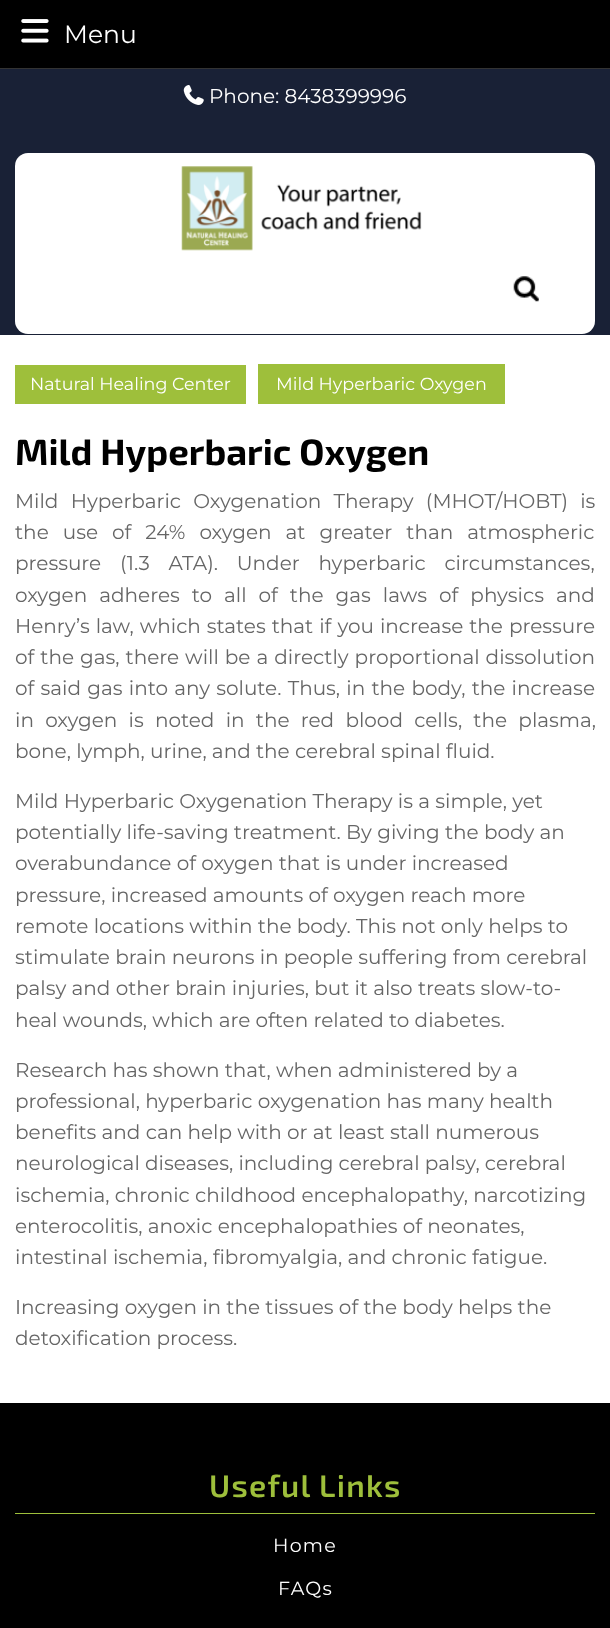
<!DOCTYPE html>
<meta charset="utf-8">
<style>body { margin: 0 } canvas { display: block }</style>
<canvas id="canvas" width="610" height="1628"></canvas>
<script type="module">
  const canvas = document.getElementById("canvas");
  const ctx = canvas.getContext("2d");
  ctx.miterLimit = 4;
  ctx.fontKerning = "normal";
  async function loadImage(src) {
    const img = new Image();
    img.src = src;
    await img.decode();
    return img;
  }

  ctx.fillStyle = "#ffffff";
  ctx.fillRect(0, 0, 610, 1628);
  ctx.fillStyle = "#000000";
  ctx.fillRect(0, 0, 610, 68);
  ctx.fillStyle = "#333333";
  ctx.fillRect(0, 68, 610, 1);
  ctx.drawImage(await loadImage("img1.png"), 21, 19, 28, 24);
  ctx.font = "25px Montserrat";
  ctx.fillStyle = "#ffffff";
  ctx.fillText("Menu", 64, 43);
  ctx.fillStyle = "#192136";
  ctx.fillRect(0, 69, 610, 266);
  ctx.drawImage(await loadImage("img2.png"), 183, 85, 21, 20);
  ctx.font = "20px Montserrat";
  ctx.fillStyle = "#ffffff";
  ctx.fillText("Phone: 8438399996", 209, 103);
  ctx.beginPath();
  ctx.roundRect(15, 153, 580, 181, 13);
  ctx.fill();
  ctx.drawImage(await loadImage("img3.png"), 181, 166, 241, 85);
  ctx.drawImage(await loadImage("img4.png"), 513, 276, 26, 26);
  ctx.fillStyle = "#9ebf3b";
  ctx.fillRect(15, 365, 231, 39);
  ctx.font = "17.5px Montserrat";
  ctx.fillStyle = "#ffffff";
  ctx.fillText("Natural Healing Center", 30, 390);
  ctx.fillStyle = "#9ebf3b";
  ctx.fillRect(258, 364, 247, 40);
  ctx.fillStyle = "#ffffff";
  ctx.fillText("Mild Hyperbaric Oxygen", 276, 390);
  ctx.font = "bold 36.6px 'Exo 2'";
  ctx.fillStyle = "#000000";
  ctx.fillText("Mild Hyperbaric Oxygen", 15, 465);
  ctx.wordSpacing = "7px";
  ctx.font = "20px Montserrat";
  ctx.fillStyle = "#666666";
  ctx.fillText("Mild Hyperbaric Oxygenation Therapy (MHOT/HOBT) is", 15, 508);
  ctx.wordSpacing = "8.75px";
  ctx.fillText("the use of 24% oxygen at greater than atmospheric", 15, 539);
  ctx.wordSpacing = "13.5px";
  ctx.fillText("pressure (1.3 ATA). Under hyperbaric circumstances,", 15, 570);
  ctx.wordSpacing = "6.75px";
  ctx.fillText("oxygen adheres to all of the gas laws of physics and", 15, 602);
  ctx.wordSpacing = "0.75px";
  ctx.fillText("Henry’s law, which states that if you increase the pressure", 15, 633);
  ctx.fillText("of the gas, there will be a directly proportional dissolution", 15, 664);
  ctx.wordSpacing = "1px";
  ctx.fillText("of said gas into any solute. Thus, in the body, the increase", 15, 695);
  ctx.wordSpacing = "6px";
  ctx.fillText("in oxygen is noted in the red blood cells, the plasma,", 15, 727);
  ctx.wordSpacing = "0px";
  ctx.fillText("bone, lymph, urine, and the cerebral spinal fluid.", 15, 758);
  ctx.fillText("Mild Hyperbaric Oxygenation Therapy is a simple, yet", 15, 808);
  ctx.fillText("potentially life-saving treatment. By giving the body an", 15, 839);
  ctx.fillText("overabundance of oxygen that is under increased", 15, 870);
  ctx.fillText("pressure, increased amounts of oxygen reach more", 15, 902);
  ctx.fillText("remote locations within the body. This not only helps to", 15, 933);
  ctx.fillText("stimulate brain neurons in people suffering from cerebral", 15, 964);
  ctx.fillText("palsy and other brain injuries, but it also treats slow-to-", 15, 995);
  ctx.fillText("heal wounds, which are often related to diabetes.", 15, 1027);
  ctx.fillText("Research has shown that, when administered by a", 15, 1077);
  ctx.fillText("professional, hyperbaric oxygenation has many health", 15, 1108);
  ctx.fillText("benefits and can help with or at least stall numerous", 15, 1139);
  ctx.fillText("neurological diseases, including cerebral palsy, cerebral", 15, 1170);
  ctx.fillText("ischemia, chronic childhood encephalopathy, narcotizing", 15, 1202);
  ctx.fillText("enterocolitis, anoxic encephalopathies of neonates,", 15, 1233);
  ctx.fillText("intestinal ischemia, fibromyalgia, and chronic fatigue.", 15, 1264);
  ctx.fillText("Increasing oxygen in the tissues of the body helps the", 15, 1314);
  ctx.fillText("detoxification process.", 15, 1345);
  ctx.fillStyle = "#000000";
  ctx.fillRect(0, 1403, 610, 225);
  ctx.fillStyle = "#9ebf3b";
  ctx.fillRect(15, 1513, 580, 1);
  ctx.letterSpacing = "1.25px";
  ctx.font = "600 31.25px 'Exo 2'";
  ctx.fillText("Useful Links", 209, 1497);
  ctx.font = "19px Montserrat";
  ctx.fillStyle = "#ffffff";
  ctx.fillText("Home", 273, 1552);
  ctx.fillText("FAQs", 278, 1595);
</script>
